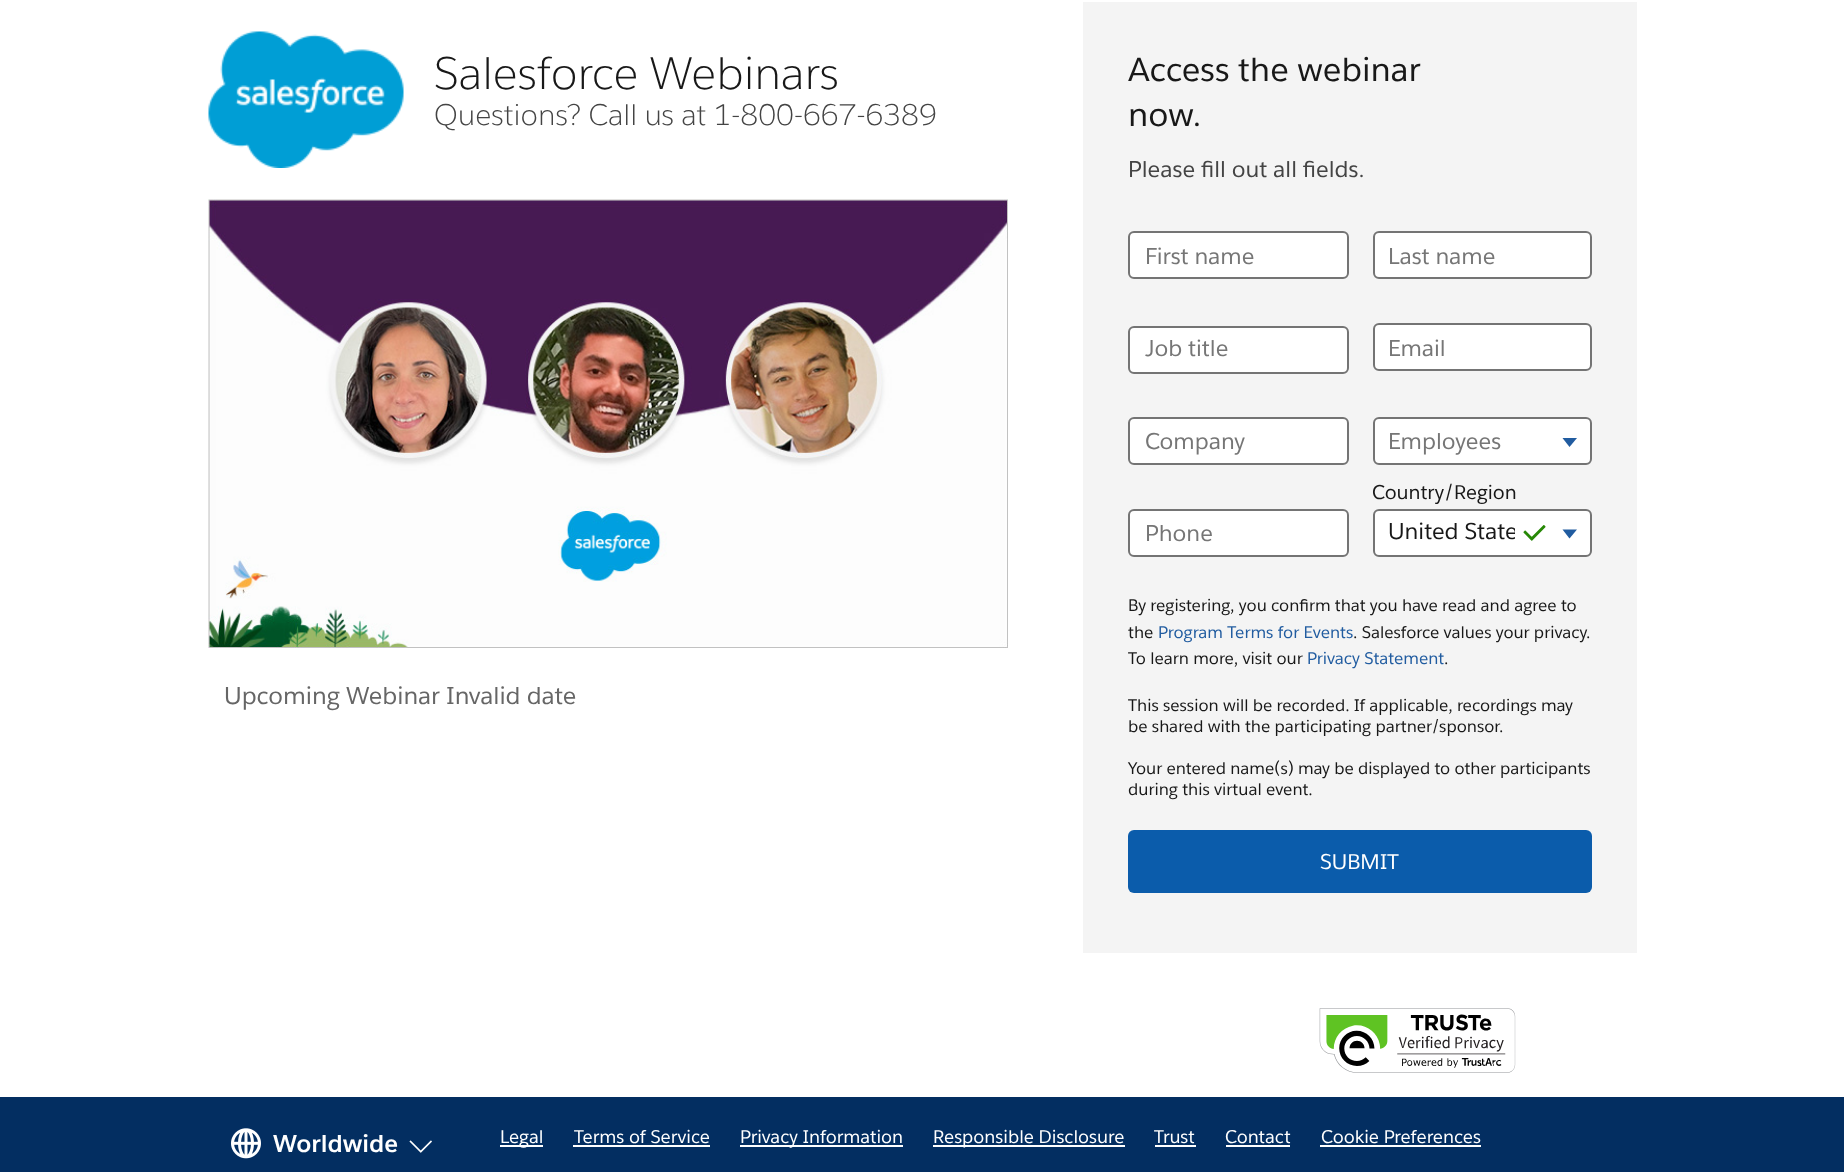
<!DOCTYPE html>
<meta charset="utf-8">
<style>body { margin: 0 } canvas { display: block }</style>
<canvas id="canvas" width="1844" height="1172"></canvas>
<script type="module">
  const canvas = document.getElementById("canvas");
  const ctx = canvas.getContext("2d");
  ctx.miterLimit = 4;
  ctx.fontKerning = "normal";
  async function loadImage(src) {
    const img = new Image();
    img.src = src;
    await img.decode();
    return img;
  }

  ctx.fillStyle = "#ffffff";
  ctx.fillRect(0, 0, 1844, 1172);
  ctx.drawImage(await loadImage("img1.png"), 208, 31, 196, 137);
  ctx.font = "300 45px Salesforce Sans";
  ctx.fillStyle = "#181818";
  ctx.fillText("Salesforce Webinars", 434, 89);
  ctx.font = "300 29.25px Salesforce Sans";
  ctx.fillStyle = "#444444";
  ctx.fillText("Questions? Call us at 1-800-667-6389", 434, 125);
  ctx.drawImage(await loadImage("img2.png"), 208, 199, 800, 449);
  ctx.font = "24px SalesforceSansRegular";
  ctx.fillStyle = "#666666";
  ctx.fillText("Upcoming Webinar Invalid date", 224, 704);
  ctx.fillStyle = "#f4f4f4";
  ctx.fillRect(1083, 2, 554, 951);
  ctx.font = "33px SalesforceSansRegular";
  ctx.fillStyle = "#181818";
  ctx.fillText("Access the webinar", 1128, 81);
  ctx.fillText("now.", 1128, 126);
  ctx.font = "22.5px SalesforceSansRegular";
  ctx.fillStyle = "#444444";
  ctx.fillText("Please fill out all fields.", 1128, 177);
  ctx.fillStyle = "#ffffff";
  ctx.beginPath();
  ctx.roundRect(1129, 232, 219, 46, 5);
  ctx.fill();
  ctx.strokeStyle = "#747474";
  ctx.lineWidth = 2;
  ctx.stroke();
  ctx.fillStyle = "#767676";
  ctx.fillText("First name", 1145, 264);
  ctx.fillStyle = "#ffffff";
  ctx.beginPath();
  ctx.roundRect(1374, 232, 217, 46, 5);
  ctx.fill();
  ctx.stroke();
  ctx.fillStyle = "#767676";
  ctx.fillText("Last name", 1388, 264);
  ctx.fillStyle = "#ffffff";
  ctx.beginPath();
  ctx.roundRect(1129, 327, 219, 46, 5);
  ctx.fill();
  ctx.stroke();
  ctx.fillStyle = "#767676";
  ctx.fillText("Job title", 1145, 356);
  ctx.fillStyle = "#ffffff";
  ctx.beginPath();
  ctx.roundRect(1374, 324, 217, 46, 5);
  ctx.fill();
  ctx.stroke();
  ctx.fillStyle = "#767676";
  ctx.fillText("Email", 1388, 356);
  ctx.fillStyle = "#ffffff";
  ctx.beginPath();
  ctx.roundRect(1129, 418, 219, 46, 5);
  ctx.fill();
  ctx.stroke();
  ctx.fillStyle = "#767676";
  ctx.fillText("Company", 1145, 449);
  ctx.fillStyle = "#ffffff";
  ctx.beginPath();
  ctx.roundRect(1374, 418, 217, 46, 5);
  ctx.fill();
  ctx.stroke();
  ctx.fillStyle = "#767676";
  ctx.fillText("Employees", 1388, 449);
  ctx.fillStyle = "#215ca0";
  ctx.beginPath();
  ctx.moveTo(1562.5, 438);
  ctx.lineTo(1577, 438);
  ctx.lineTo(1569.5, 447);
  ctx.closePath();
  ctx.fill();
  ctx.fillStyle = "#ffffff";
  ctx.beginPath();
  ctx.roundRect(1129, 510, 219, 46, 5);
  ctx.fill();
  ctx.stroke();
  ctx.fillStyle = "#767676";
  ctx.fillText("Phone", 1145, 541);
  ctx.font = "19.5px SalesforceSansRegular";
  ctx.fillStyle = "#181818";
  ctx.fillText("Country/Region", 1372, 499);
  ctx.fillStyle = "#ffffff";
  ctx.beginPath();
  ctx.roundRect(1374, 510, 217, 46, 5);
  ctx.fill();
  ctx.stroke();
  ctx.save();
  ctx.beginPath();
  ctx.rect(1389, 516, 126, 32);
  ctx.clip();
  ctx.font = "22.5px SalesforceSansRegular";
  ctx.fillStyle = "#181818";
  ctx.fillText("United State", 1388, 539);
  ctx.restore();
  ctx.drawImage(await loadImage("img3.png"), 1523, 525, 23, 16);
  ctx.fillStyle = "#215ca0";
  ctx.beginPath();
  ctx.moveTo(1562.5, 529.5);
  ctx.lineTo(1577, 529.5);
  ctx.lineTo(1569.5, 538.5);
  ctx.closePath();
  ctx.fill();
  ctx.font = "16.5px SalesforceSansRegular";
  ctx.fillStyle = "#181818";
  ctx.fillText("By registering, you confirm that you have read and agree to", 1128, 611);
  ctx.fillText("the", 1128, 638);
  ctx.fillStyle = "#215ca0";
  ctx.fillText("Program Terms for Events", 1158, 638);
  ctx.fillStyle = "#181818";
  ctx.fillText(". Salesforce values your privacy.", 1353, 638);
  ctx.fillText("To learn more, visit our", 1128, 664);
  ctx.fillStyle = "#215ca0";
  ctx.fillText("Privacy Statement", 1307, 664);
  ctx.fillStyle = "#181818";
  ctx.fillText(".", 1444, 664);
  ctx.fillText("This session will be recorded. If applicable, recordings may", 1128, 711);
  ctx.fillText("be shared with the participating partner/sponsor.", 1128, 732);
  ctx.fillText("Your entered name(s) may be displayed to other participants", 1128, 774);
  ctx.fillText("during this virtual event.", 1128, 795);
  ctx.fillStyle = "#0b5cab";
  ctx.beginPath();
  ctx.roundRect(1128, 830, 464, 63, 6);
  ctx.fill();
  ctx.font = "21px SalesforceSansRegular";
  ctx.fillStyle = "#ffffff";
  ctx.fillText("SUBMIT", 1320, 869);
  ctx.drawImage(await loadImage("img4.png"), 1319, 1008, 197, 65);
  ctx.fillStyle = "#032e61";
  ctx.fillRect(0, 1097, 1844, 75);
  ctx.drawImage(await loadImage("img5.png"), 231, 1128, 30, 31);
  ctx.font = "bold 24px Salesforce Sans";
  ctx.fillStyle = "#ffffff";
  ctx.fillText("Worldwide", 273, 1152);
  ctx.drawImage(await loadImage("img6.png"), 409, 1140, 23, 13);
  ctx.fillRect(500, 1145, 43, 2);
  ctx.font = "18px SalesforceSansRegular";
  ctx.fillText("Legal", 500, 1143);
  ctx.fillText("Terms of Service", 574, 1143);
  ctx.fillRect(573, 1145, 137, 2);
  ctx.fillRect(740, 1145, 163, 2);
  ctx.fillText("Privacy Information", 740, 1143);
  ctx.fillRect(933, 1145, 192, 2);
  ctx.fillText("Responsible Disclosure", 933, 1143);
  ctx.fillText("Trust", 1154, 1143);
  ctx.fillRect(1155, 1145, 41, 2);
  ctx.fillText("Contact", 1225, 1143);
  ctx.fillRect(1226, 1145, 64, 2);
  ctx.fillText("Cookie Preferences", 1321, 1143);
  ctx.fillRect(1320, 1145, 161, 2);
</script>
